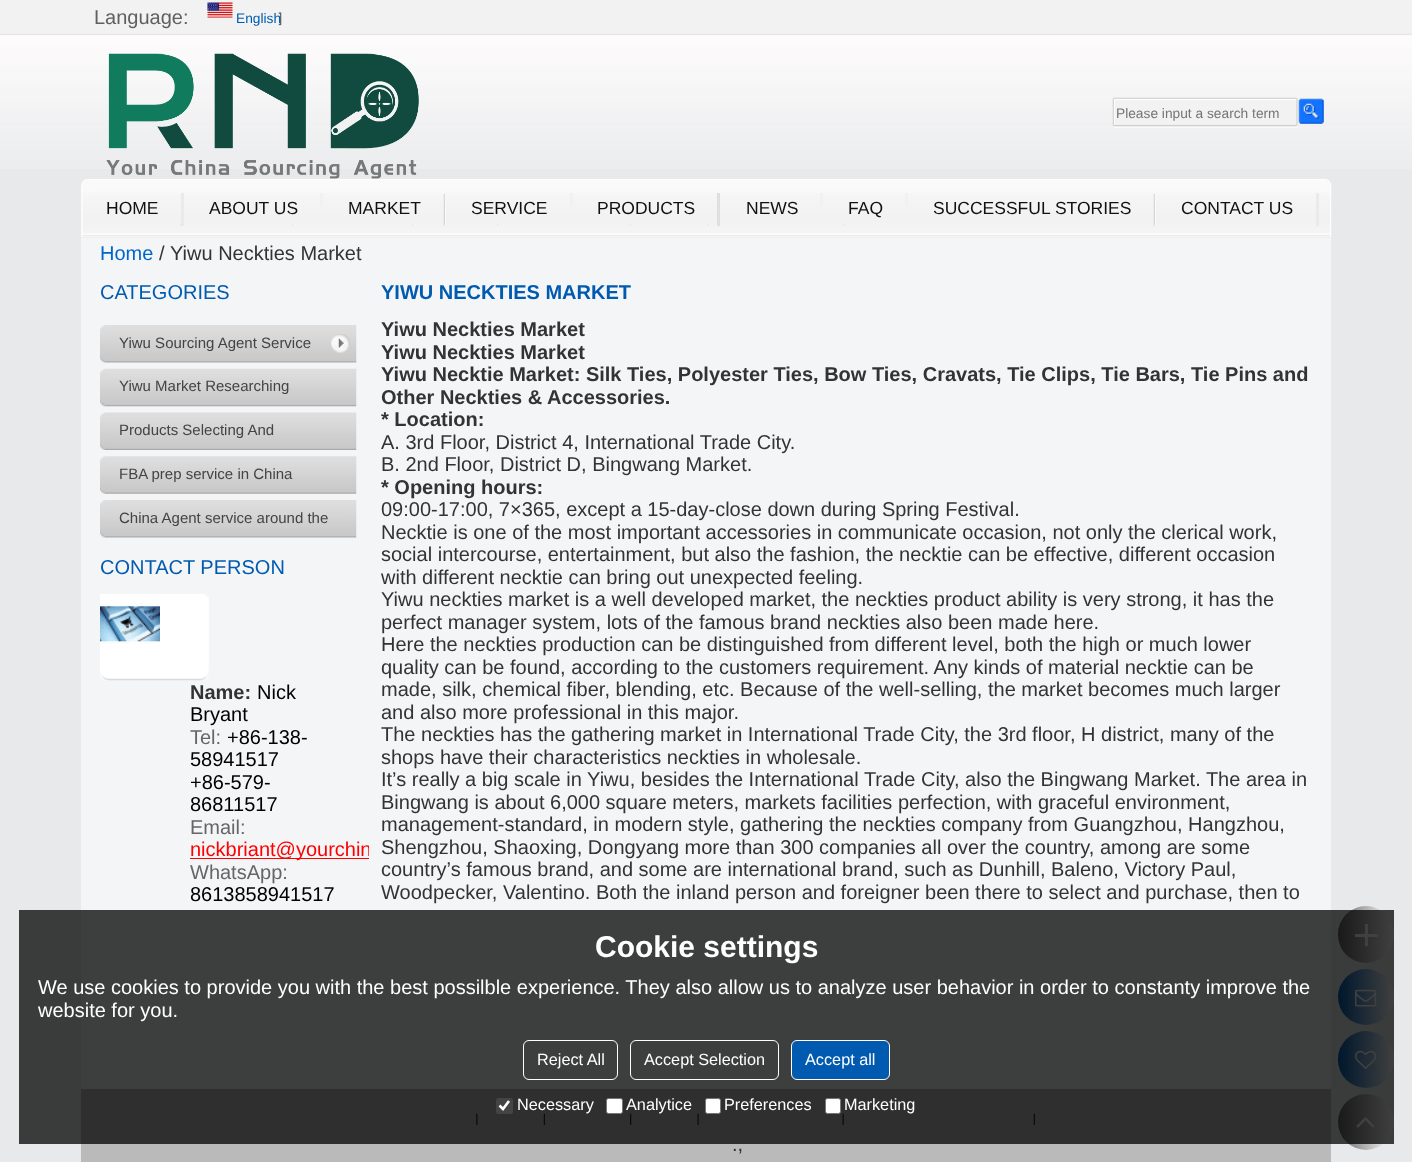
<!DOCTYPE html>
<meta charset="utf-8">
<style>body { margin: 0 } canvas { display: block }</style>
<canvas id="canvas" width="1412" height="1162"></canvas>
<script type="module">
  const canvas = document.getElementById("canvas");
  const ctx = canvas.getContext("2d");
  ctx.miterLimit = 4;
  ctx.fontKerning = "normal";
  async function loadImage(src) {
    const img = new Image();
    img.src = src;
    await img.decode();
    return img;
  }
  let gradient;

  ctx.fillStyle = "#e8e9eb";
  ctx.fillRect(0, 0, 1412, 1162);
  ctx.drawImage(await loadImage("img1.png"), 0, 0, 1412, 169);
  ctx.font = "20px Liberation Sans";
  ctx.fillStyle = "#606060";
  ctx.fillText("Language:", 94, 24);
  ctx.drawImage(await loadImage("img2.png"), 278, 12, 4, 14);
  ctx.drawImage(await loadImage("img3.png"), 207, 2, 26, 16);
  ctx.font = "13.75px Liberation Sans";
  ctx.fillStyle = "#005bb0";
  ctx.fillText("English", 236, 23);
  ctx.drawImage(await loadImage("img4.png"), 106, 53, 313, 126);
  ctx.drawImage(await loadImage("img5.png"), 1112, 97, 186, 31);
  ctx.fillStyle = "#757575";
  ctx.fillText("Please input a search term", 1116, 118);
  ctx.drawImage(await loadImage("img6.png"), 1298, 98, 26, 26);
  ctx.drawImage(await loadImage("img7.png"), 81, 178, 1251, 60);
  ctx.fillStyle = "#eaeaea";
  ctx.fillRect(181, 193, 3, 33);
  ctx.font = "17.5px Liberation Sans";
  ctx.fillStyle = "#111111";
  ctx.fillText("HOME", 106, 214);
  ctx.fillStyle = "#f1f1f1";
  ctx.fillRect(320, 193, 3, 13);
  ctx.fillStyle = "#111111";
  ctx.fillText("ABOUT US", 209, 214);
  ctx.drawImage(await loadImage("img8.png"), 443, 193, 3, 34);
  ctx.fillText("MARKET", 348, 214);
  ctx.fillStyle = "#f1f1f1";
  ctx.fillRect(570, 193, 3, 13);
  ctx.fillStyle = "#111111";
  ctx.fillText("SERVICE", 471, 214);
  ctx.fillStyle = "#dfdfdf";
  ctx.fillRect(717, 193, 3, 33);
  ctx.fillStyle = "#111111";
  ctx.fillText("PRODUCTS", 597, 214);
  ctx.fillStyle = "#f1f1f1";
  ctx.fillRect(820, 193, 3, 13);
  ctx.fillStyle = "#111111";
  ctx.fillText("NEWS", 746, 214);
  ctx.fillStyle = "#f1f1f1";
  ctx.fillRect(905, 193, 3, 13);
  ctx.fillStyle = "#111111";
  ctx.fillText("FAQ", 848, 214);
  ctx.drawImage(await loadImage("img8.png"), 1153, 193, 3, 34);
  ctx.fillText("SUCCESSFUL STORIES", 933, 214);
  ctx.fillStyle = "#eaeaea";
  ctx.fillRect(1316, 193, 3, 33);
  ctx.fillStyle = "#111111";
  ctx.fillText("CONTACT US", 1181, 214);
  ctx.fillStyle = "#f4f5f7";
  ctx.fillRect(81, 238, 1250, 851);
  ctx.font = "20px Liberation Sans";
  ctx.fillStyle = "#0066cc";
  ctx.fillText("Home", 100, 260);
  ctx.fillStyle = "#333333";
  ctx.fillText("/", 159, 260);
  ctx.fillText("Yiwu Neckties Market", 170, 260);
  ctx.fillStyle = "#005bb0";
  ctx.fillText("CATEGORIES", 100, 299);
  ctx.drawImage(await loadImage("img9.png"), 100, 325, 257, 38);
  ctx.font = "15px Liberation Sans";
  ctx.fillStyle = "#444444";
  ctx.fillText("Yiwu Sourcing Agent Service", 119, 348);
  ctx.drawImage(await loadImage("img10.png"), 331, 334, 19, 19);
  ctx.drawImage(await loadImage("img11.png"), 100, 368, 257, 39);
  ctx.fillText("Yiwu Market Researching", 119, 391);
  ctx.drawImage(await loadImage("img12.png"), 100, 412, 257, 38);
  ctx.fillText("Products Selecting And", 119, 435);
  ctx.drawImage(await loadImage("img13.png"), 100, 456, 257, 38);
  ctx.fillText("FBA prep service in China", 119, 479);
  ctx.drawImage(await loadImage("img9.png"), 100, 500, 257, 38);
  ctx.fillText("China Agent service around the", 119, 523);
  ctx.font = "20px Liberation Sans";
  ctx.fillStyle = "#005bb0";
  ctx.fillText("CONTACT PERSON", 100, 574);
  ctx.drawImage(await loadImage("img14.png"), 100, 594, 109, 87);
  ctx.drawImage(await loadImage("img15.png"), 100, 594, 60, 50);
  ctx.fillStyle = "#000000";
  ctx.fillText("Nick", 257, 699);
  ctx.fillText("Bryant", 190, 721);
  ctx.font = "bold 20px Liberation Sans";
  ctx.fillStyle = "#333333";
  ctx.fillText("Name:", 190, 699);
  ctx.font = "20px Liberation Sans";
  ctx.fillStyle = "#666666";
  ctx.fillText("Tel:", 190, 744);
  ctx.fillStyle = "#000000";
  ctx.fillText("+86-138-", 227, 744);
  ctx.fillText("58941517", 190, 766);
  ctx.fillText("+86-579-", 190, 789);
  ctx.fillText("86811517", 190, 811);
  ctx.fillStyle = "#666666";
  ctx.fillText("Email:", 190, 834);
  ctx.fillStyle = "#ff0000";
  ctx.fillRect(190, 858, 179, 1);
  ctx.save();
  ctx.beginPath();
  ctx.rect(81, 544, 288, 520);
  ctx.clip();
  ctx.fillText("nickbriant@yourchin", 190, 856);
  ctx.restore();
  ctx.fillStyle = "#666666";
  ctx.fillText("WhatsApp:", 190, 879);
  ctx.fillStyle = "#000000";
  ctx.fillText("8613858941517", 190, 901);
  ctx.font = "bold 20px Liberation Sans";
  ctx.fillStyle = "#005bb0";
  ctx.fillText("YIWU NECKTIES MARKET", 381, 299);
  ctx.fillStyle = "#333333";
  ctx.fillText("Yiwu Neckties Market", 381, 336);
  ctx.fillText("Yiwu Neckties Market", 381, 359);
  ctx.fillText("Yiwu Necktie Market: Silk Ties, Polyester Ties, Bow Ties, Cravats, Tie Clips, Tie Bars, Tie Pins and", 381, 381);
  ctx.fillText("Other Neckties & Accessories.", 381, 404);
  ctx.fillText("* Location:", 381, 426);
  ctx.font = "20px Liberation Sans";
  ctx.fillText("A. 3rd Floor, District 4, International Trade City.", 381, 449);
  ctx.fillText("B. 2nd Floor, District D, Bingwang Market.", 381, 471);
  ctx.font = "bold 20px Liberation Sans";
  ctx.fillText("* Opening hours:", 381, 494);
  ctx.font = "20px Liberation Sans";
  ctx.fillText("09:00-17:00, 7×365, except a 15-day-close down during Spring Festival.", 381, 516);
  ctx.fillText("Necktie is one of the most important accessories in communicate occasion, not only the clerical work,", 381, 539);
  ctx.fillText("social intercourse, entertainment, but also the fashion, the necktie can be effective, different occasion", 381, 561);
  ctx.fillText("with different necktie can bring out unexpected feeling.", 381, 584);
  ctx.fillText("Yiwu neckties market is a well developed market, the neckties product ability is very strong, it has the", 381, 606);
  ctx.fillText("perfect manager system, lots of the famous brand neckties also been made here.", 381, 629);
  ctx.fillText("Here the neckties production can be distinguished from different level, both the high or much lower", 381, 651);
  ctx.fillText("quality can be found, according to the customers requirement. Any kinds of material necktie can be", 381, 674);
  ctx.fillText("made, silk, chemical fiber, blending, etc. Because of the well-selling, the market becomes much larger", 381, 696);
  ctx.fillText("and also more professional in this major.", 381, 719);
  ctx.fillText("The neckties has the gathering market in International Trade City, the 3rd floor, H district, many of the", 381, 741);
  ctx.fillText("shops have their characteristics neckties in wholesale.", 381, 764);
  ctx.fillText("It’s really a big scale in Yiwu, besides the International Trade City, also the Bingwang Market. The area in", 381, 786);
  ctx.fillText("Bingwang is about 6,000 square meters, markets facilities perfection, with graceful environment,", 381, 809);
  ctx.fillText("management-standard, in modern style, gathering the neckties company from Guangzhou, Hangzhou,", 381, 831);
  ctx.fillText("Shengzhou, Shaoxing, Dongyang more than 300 companies all over the country, among are some", 381, 854);
  ctx.fillText("country’s famous brand, and some are international brand, such as Dunhill, Baleno, Victory Paul,", 381, 876);
  ctx.fillText("Woodpecker, Valentino. Both the inland person and foreigner been there to select and purchase, then to", 381, 899);
  ctx.fillStyle = "#bababa";
  ctx.fillRect(81, 1089, 1250, 73);
  ctx.drawImage(await loadImage("img16.png"), 476, 1113, 2, 12);
  ctx.drawImage(await loadImage("img17.png"), 543, 1113, 2, 12);
  ctx.drawImage(await loadImage("img18.png"), 630, 1113, 2, 12);
  ctx.drawImage(await loadImage("img19.png"), 697, 1113, 2, 12);
  ctx.drawImage(await loadImage("img19.png"), 842, 1113, 2, 12);
  ctx.drawImage(await loadImage("img17.png"), 1033, 1113, 2, 12);
  ctx.fillStyle = "#333333";
  ctx.fillText(".,", 732, 1151);
  gradient = ctx.createLinearGradient(1338, 934, 1394, 934);
  gradient.addColorStop(0, "#666666");
  gradient.addColorStop(1, "#ffffff");
  ctx.fillStyle = gradient;
  ctx.beginPath();
  ctx.roundRect(1338, 906, 56, 57, 28);
  ctx.fill();
  ctx.fillStyle = "#ffffff";
  ctx.fillRect(1355, 934, 23, 3);
  ctx.fillRect(1365, 924, 3, 22);
  gradient = ctx.createLinearGradient(1338, 997, 1394, 997);
  gradient.addColorStop(0, "#005bb0");
  gradient.addColorStop(1, "#ffffff");
  ctx.fillStyle = gradient;
  ctx.beginPath();
  ctx.arc(1366, 997, 28, 0, Math.PI * 2);
  ctx.fill();
  ctx.drawImage(await loadImage("img20.png"), 1355, 989, 22, 18);
  gradient = ctx.createLinearGradient(1338, 1059, 1394, 1059);
  gradient.addColorStop(0, "#005bb0");
  gradient.addColorStop(1, "#ffffff");
  ctx.fillStyle = gradient;
  ctx.beginPath();
  ctx.roundRect(1338, 1031, 56, 57, 28);
  ctx.fill();
  ctx.drawImage(await loadImage("img21.png"), 1355, 1050, 22, 19);
  gradient = ctx.createLinearGradient(1338, 1122, 1394, 1122);
  gradient.addColorStop(0, "#666666");
  gradient.addColorStop(1, "#ffffff");
  ctx.fillStyle = gradient;
  ctx.beginPath();
  ctx.arc(1366, 1122, 28, 0, Math.PI * 2);
  ctx.fill();
  ctx.drawImage(await loadImage("img22.png"), 1356, 1117, 19, 11);
  ctx.fillStyle = "rgba(0, 0, 0, 0.75)";
  ctx.fillRect(19, 910, 1375, 234);
  ctx.font = "bold 30px Liberation Sans";
  ctx.fillStyle = "#ffffff";
  ctx.fillText("Cookie settings", 595, 957);
  ctx.font = "20px Liberation Sans";
  ctx.fillText("We use cookies to provide you with the best possilble experience. They also allow us to analyze user behavior in order to constanty improve the", 38, 994);
  ctx.fillText("website for you.", 38, 1017);
  ctx.beginPath();
  ctx.roundRect(523.5, 1040.5, 94, 39, 5.5);
  ctx.strokeStyle = "#ffffff";
  ctx.stroke();
  ctx.font = "16.25px Liberation Sans";
  ctx.fillText("Reject All", 537, 1065);
  ctx.beginPath();
  ctx.roundRect(630.5, 1040.5, 148, 39, 5.5);
  ctx.stroke();
  ctx.fillText("Accept Selection", 644, 1065);
  ctx.fillStyle = "#005bb0";
  ctx.beginPath();
  ctx.roundRect(791.5, 1040.5, 98, 39, 5.5);
  ctx.fill();
  ctx.stroke();
  ctx.fillStyle = "#ffffff";
  ctx.fillText("Accept all", 805, 1065);
  ctx.fillStyle = "rgba(118, 118, 118, 0.3)";
  ctx.beginPath();
  ctx.roundRect(496, 1098, 17, 16, 2.5);
  ctx.fill();
  ctx.beginPath();
  ctx.moveTo(499.5, 1105.5);
  ctx.lineTo(503, 1109);
  ctx.lineTo(509, 1101);
  ctx.lineWidth = 2.6;
  ctx.stroke();
  ctx.fillStyle = "#ffffff";
  ctx.fillText("Necessary", 517, 1110);
  ctx.beginPath();
  ctx.roundRect(606.5, 1098.5, 16, 15, 2);
  ctx.fill();
  ctx.strokeStyle = "#767676";
  ctx.lineWidth = 1;
  ctx.stroke();
  ctx.fillText("Analytice", 626, 1110);
  ctx.beginPath();
  ctx.roundRect(705.5, 1098.5, 15, 15, 2);
  ctx.fill();
  ctx.stroke();
  ctx.fillText("Preferences", 724, 1110);
  ctx.beginPath();
  ctx.roundRect(825.5, 1098.5, 15, 15, 2);
  ctx.fill();
  ctx.stroke();
  ctx.fillText("Marketing", 844, 1110);
</script>
